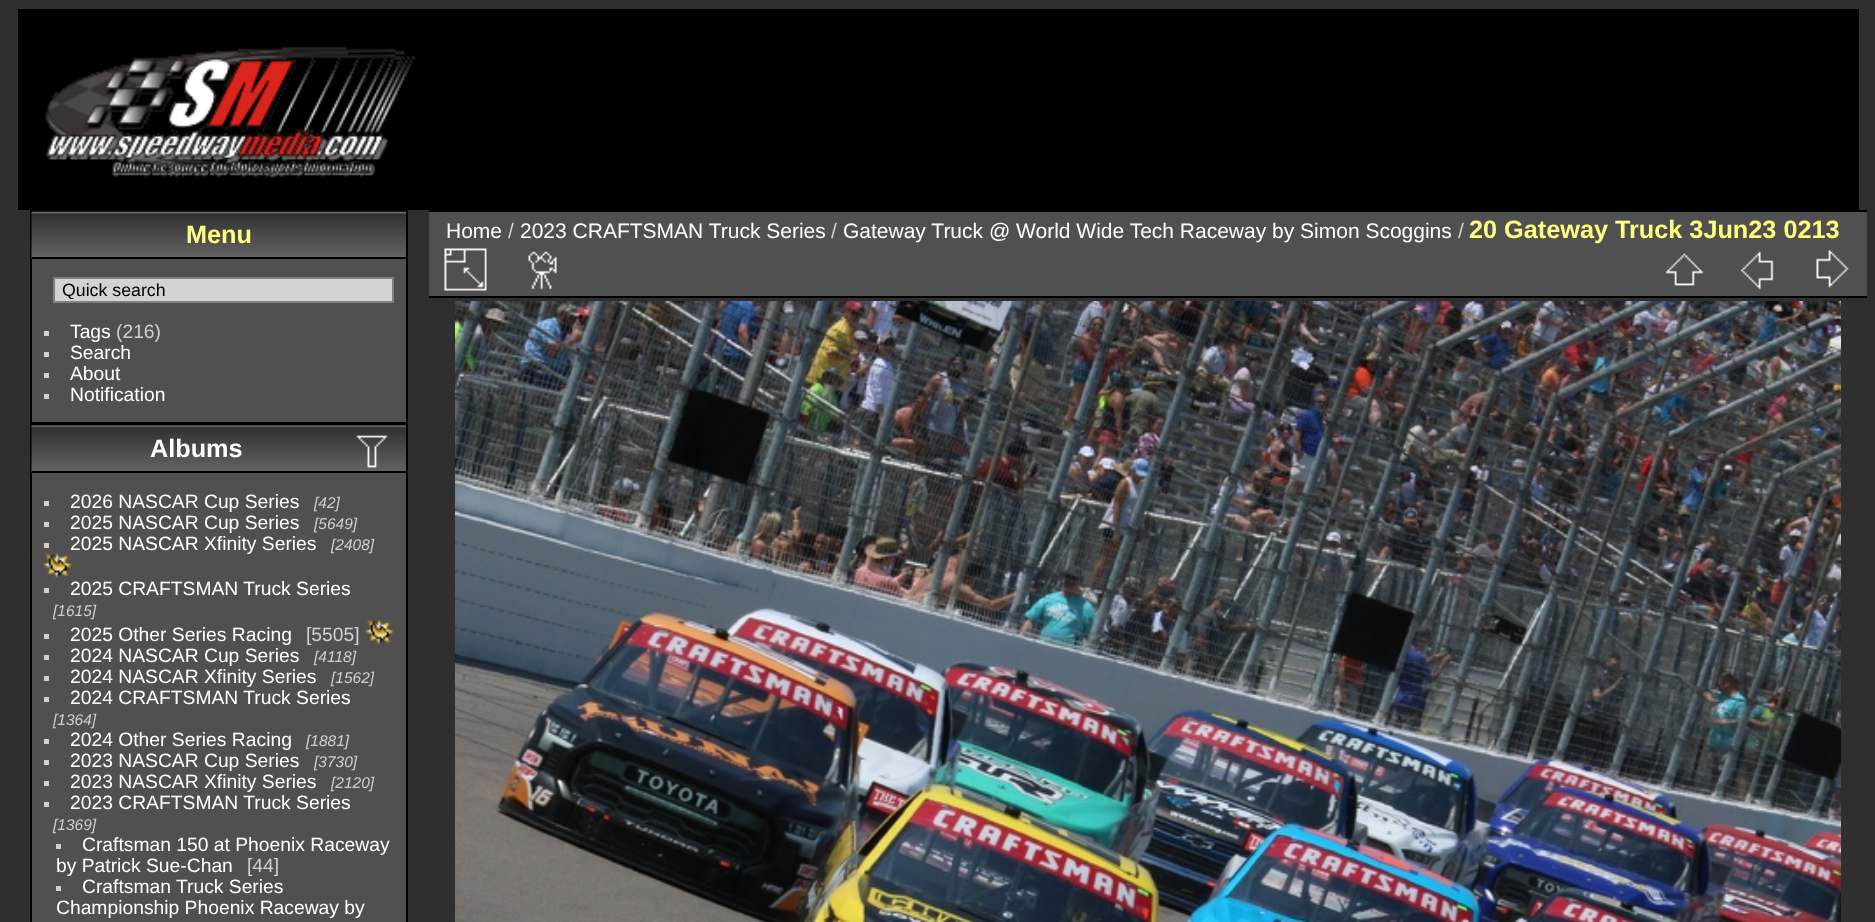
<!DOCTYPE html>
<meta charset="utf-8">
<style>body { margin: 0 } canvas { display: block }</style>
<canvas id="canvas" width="1875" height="922"></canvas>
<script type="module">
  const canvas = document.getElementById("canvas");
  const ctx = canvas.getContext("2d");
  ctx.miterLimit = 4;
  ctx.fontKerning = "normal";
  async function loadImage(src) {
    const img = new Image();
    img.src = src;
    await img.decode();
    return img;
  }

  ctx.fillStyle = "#2f2f2f";
  ctx.fillRect(0, 0, 1875, 922);
  ctx.fillStyle = "#000000";
  ctx.fillRect(18, 9, 1841, 201);
  ctx.drawImage(await loadImage("img1.png"), 45, 47, 370, 131);
  ctx.fillStyle = "#505050";
  ctx.fillRect(32, 259, 374, 163);
  ctx.strokeStyle = "#000000";
  ctx.lineWidth = 2;
  ctx.strokeRect(31, 211, 376, 212);
  ctx.drawImage(await loadImage("img2.png"), 31, 211, 375, 48);
  ctx.fillStyle = "#000000";
  ctx.fillRect(32, 257, 374, 2);
  ctx.font = "bold 25.25px Liberation Sans";
  ctx.fillStyle = "#ffff80";
  ctx.fillText("Menu", 186, 243);
  ctx.fillStyle = "#d3d3d3";
  ctx.beginPath();
  ctx.rect(54, 278, 339, 24);
  ctx.fill();
  ctx.strokeStyle = "#808080";
  ctx.stroke();
  ctx.save();
  ctx.beginPath();
  ctx.rect(58, 280, 331, 19);
  ctx.clip();
  ctx.font = "17.75px Liberation Sans";
  ctx.fillStyle = "#000000";
  ctx.fillText("Quick search", 62, 296);
  ctx.restore();
  ctx.fillStyle = "#d0d0d0";
  ctx.fillRect(44, 331, 5, 5);
  ctx.font = "19.3px Liberation Sans";
  ctx.fillStyle = "#ffffff";
  ctx.fillText("Tags", 70, 338);
  ctx.fillStyle = "#d0d0d0";
  ctx.fillText("(216)", 116, 338);
  ctx.fillRect(44, 352, 5, 5);
  ctx.fillStyle = "#ffffff";
  ctx.fillText("Search", 70, 359);
  ctx.fillStyle = "#d0d0d0";
  ctx.fillRect(44, 373, 5, 5);
  ctx.fillStyle = "#ffffff";
  ctx.fillText("About", 70, 380);
  ctx.fillStyle = "#d0d0d0";
  ctx.fillRect(44, 394, 5, 5);
  ctx.fillStyle = "#ffffff";
  ctx.fillText("Notification", 70, 401);
  ctx.fillStyle = "#505050";
  ctx.fillRect(32, 473, 374, 449);
  ctx.strokeStyle = "#000000";
  ctx.strokeRect(31, 425, 376, 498);
  ctx.drawImage(await loadImage("img3.png"), 31, 425, 375, 48);
  ctx.fillStyle = "#000000";
  ctx.fillRect(32, 471, 374, 2);
  ctx.font = "bold 25.25px Liberation Sans";
  ctx.fillStyle = "#ffffff";
  ctx.fillText("Albums", 150, 457);
  ctx.drawImage(await loadImage("img4.png"), 356, 435, 32, 33);
  ctx.fillStyle = "#d0d0d0";
  ctx.fillRect(44, 501, 5, 5);
  ctx.font = "19.3px Liberation Sans";
  ctx.fillStyle = "#ffffff";
  ctx.fillText("2026 NASCAR Cup Series", 70, 508);
  ctx.font = "italic 15.5px Liberation Sans";
  ctx.fillStyle = "#d0d0d0";
  ctx.fillText("[42]", 314, 508);
  ctx.fillRect(44, 522, 5, 5);
  ctx.font = "19.3px Liberation Sans";
  ctx.fillStyle = "#ffffff";
  ctx.fillText("2025 NASCAR Cup Series", 70, 529);
  ctx.font = "italic 15.5px Liberation Sans";
  ctx.fillStyle = "#d0d0d0";
  ctx.fillText("[5649]", 314, 529);
  ctx.fillRect(44, 543, 5, 5);
  ctx.font = "19.3px Liberation Sans";
  ctx.fillStyle = "#ffffff";
  ctx.fillText("2025 NASCAR Xfinity Series", 70, 550);
  ctx.font = "italic 15.5px Liberation Sans";
  ctx.fillStyle = "#d0d0d0";
  ctx.fillText("[2408]", 331, 550);
  ctx.drawImage(await loadImage("img5.png"), 43, 553, 29, 25);
  ctx.fillRect(44, 588, 5, 5);
  ctx.font = "19.3px Liberation Sans";
  ctx.fillStyle = "#ffffff";
  ctx.fillText("2025 CRAFTSMAN Truck Series", 70, 595);
  ctx.font = "italic 15.5px Liberation Sans";
  ctx.fillStyle = "#d0d0d0";
  ctx.fillText("[1615]", 53, 616);
  ctx.fillRect(44, 634, 5, 5);
  ctx.font = "19.3px Liberation Sans";
  ctx.fillStyle = "#ffffff";
  ctx.fillText("2025 Other Series Racing", 70, 641);
  ctx.fillStyle = "#d0d0d0";
  ctx.fillText("[5505]", 306, 641);
  ctx.drawImage(await loadImage("img6.png"), 365, 619, 29, 25);
  ctx.fillRect(44, 655, 5, 5);
  ctx.fillStyle = "#ffffff";
  ctx.fillText("2024 NASCAR Cup Series", 70, 662);
  ctx.font = "italic 15.5px Liberation Sans";
  ctx.fillStyle = "#d0d0d0";
  ctx.fillText("[4118]", 314, 662);
  ctx.fillRect(44, 676, 5, 5);
  ctx.font = "19.3px Liberation Sans";
  ctx.fillStyle = "#ffffff";
  ctx.fillText("2024 NASCAR Xfinity Series", 70, 683);
  ctx.font = "italic 15.5px Liberation Sans";
  ctx.fillStyle = "#d0d0d0";
  ctx.fillText("[1562]", 331, 683);
  ctx.fillRect(44, 697, 5, 5);
  ctx.font = "19.3px Liberation Sans";
  ctx.fillStyle = "#ffffff";
  ctx.fillText("2024 CRAFTSMAN Truck Series", 70, 704);
  ctx.font = "italic 15.5px Liberation Sans";
  ctx.fillStyle = "#d0d0d0";
  ctx.fillText("[1364]", 53, 725);
  ctx.fillRect(44, 739, 5, 5);
  ctx.font = "19.3px Liberation Sans";
  ctx.fillStyle = "#ffffff";
  ctx.fillText("2024 Other Series Racing", 70, 746);
  ctx.font = "italic 15.5px Liberation Sans";
  ctx.fillStyle = "#d0d0d0";
  ctx.fillText("[1881]", 306, 746);
  ctx.fillRect(44, 760, 5, 5);
  ctx.font = "19.3px Liberation Sans";
  ctx.fillStyle = "#ffffff";
  ctx.fillText("2023 NASCAR Cup Series", 70, 767);
  ctx.font = "italic 15.5px Liberation Sans";
  ctx.fillStyle = "#d0d0d0";
  ctx.fillText("[3730]", 314, 767);
  ctx.fillRect(44, 781, 5, 5);
  ctx.font = "19.3px Liberation Sans";
  ctx.fillStyle = "#ffffff";
  ctx.fillText("2023 NASCAR Xfinity Series", 70, 788);
  ctx.font = "italic 15.5px Liberation Sans";
  ctx.fillStyle = "#d0d0d0";
  ctx.fillText("[2120]", 331, 788);
  ctx.fillRect(44, 802, 5, 5);
  ctx.font = "19.3px Liberation Sans";
  ctx.fillStyle = "#ffffff";
  ctx.fillText("2023 CRAFTSMAN Truck Series", 70, 809);
  ctx.font = "italic 15.5px Liberation Sans";
  ctx.fillStyle = "#d0d0d0";
  ctx.fillText("[1369]", 53, 830);
  ctx.fillRect(56, 844, 5, 5);
  ctx.font = "19.3px Liberation Sans";
  ctx.fillStyle = "#ffffff";
  ctx.fillText("Craftsman 150 at Phoenix Raceway", 82, 851);
  ctx.fillText("by Patrick Sue-Chan", 56, 872);
  ctx.fillStyle = "#d0d0d0";
  ctx.fillText("[44]", 247, 872);
  ctx.fillRect(56, 886, 5, 5);
  ctx.fillStyle = "#ffffff";
  ctx.fillText("Craftsman Truck Series", 82, 893);
  ctx.fillText("Championship Phoenix Raceway by", 56, 914);
  ctx.fillStyle = "#505050";
  ctx.fillRect(429, 212, 1438, 84);
  ctx.fillStyle = "#000000";
  ctx.fillRect(429, 296, 1438, 2);
  ctx.drawImage(await loadImage("img7.png"), 444, 248, 43, 43);
  ctx.drawImage(await loadImage("img8.png"), 528, 251, 29, 39);
  ctx.drawImage(await loadImage("img9.png"), 1665, 253, 39, 33);
  ctx.drawImage(await loadImage("img10.png"), 1740, 251, 34, 39);
  ctx.drawImage(await loadImage("img11.png"), 1816, 249, 33, 39);
  ctx.fillRect(429, 210, 1438, 2);
  ctx.font = "21px Liberation Sans";
  ctx.fillStyle = "#ffffff";
  ctx.fillText("Home", 446, 238);
  ctx.fillStyle = "#d0d0d0";
  ctx.fillText("/", 508, 238);
  ctx.fillStyle = "#ffffff";
  ctx.fillText("2023 CRAFTSMAN Truck Series", 520, 238);
  ctx.fillStyle = "#d0d0d0";
  ctx.fillText("/", 831, 238);
  ctx.fillStyle = "#ffffff";
  ctx.fillText("Gateway Truck @ World Wide Tech Raceway by Simon Scoggins", 843, 238);
  ctx.fillStyle = "#d0d0d0";
  ctx.fillText("/", 1458, 238);
  ctx.font = "bold 25.25px Liberation Sans";
  ctx.fillStyle = "#ffff80";
  ctx.fillText("20 Gateway Truck 3Jun23 0213", 1469, 238);
  ctx.drawImage(await loadImage("img12.png"), 455, 301, 1386, 621);
</script>
